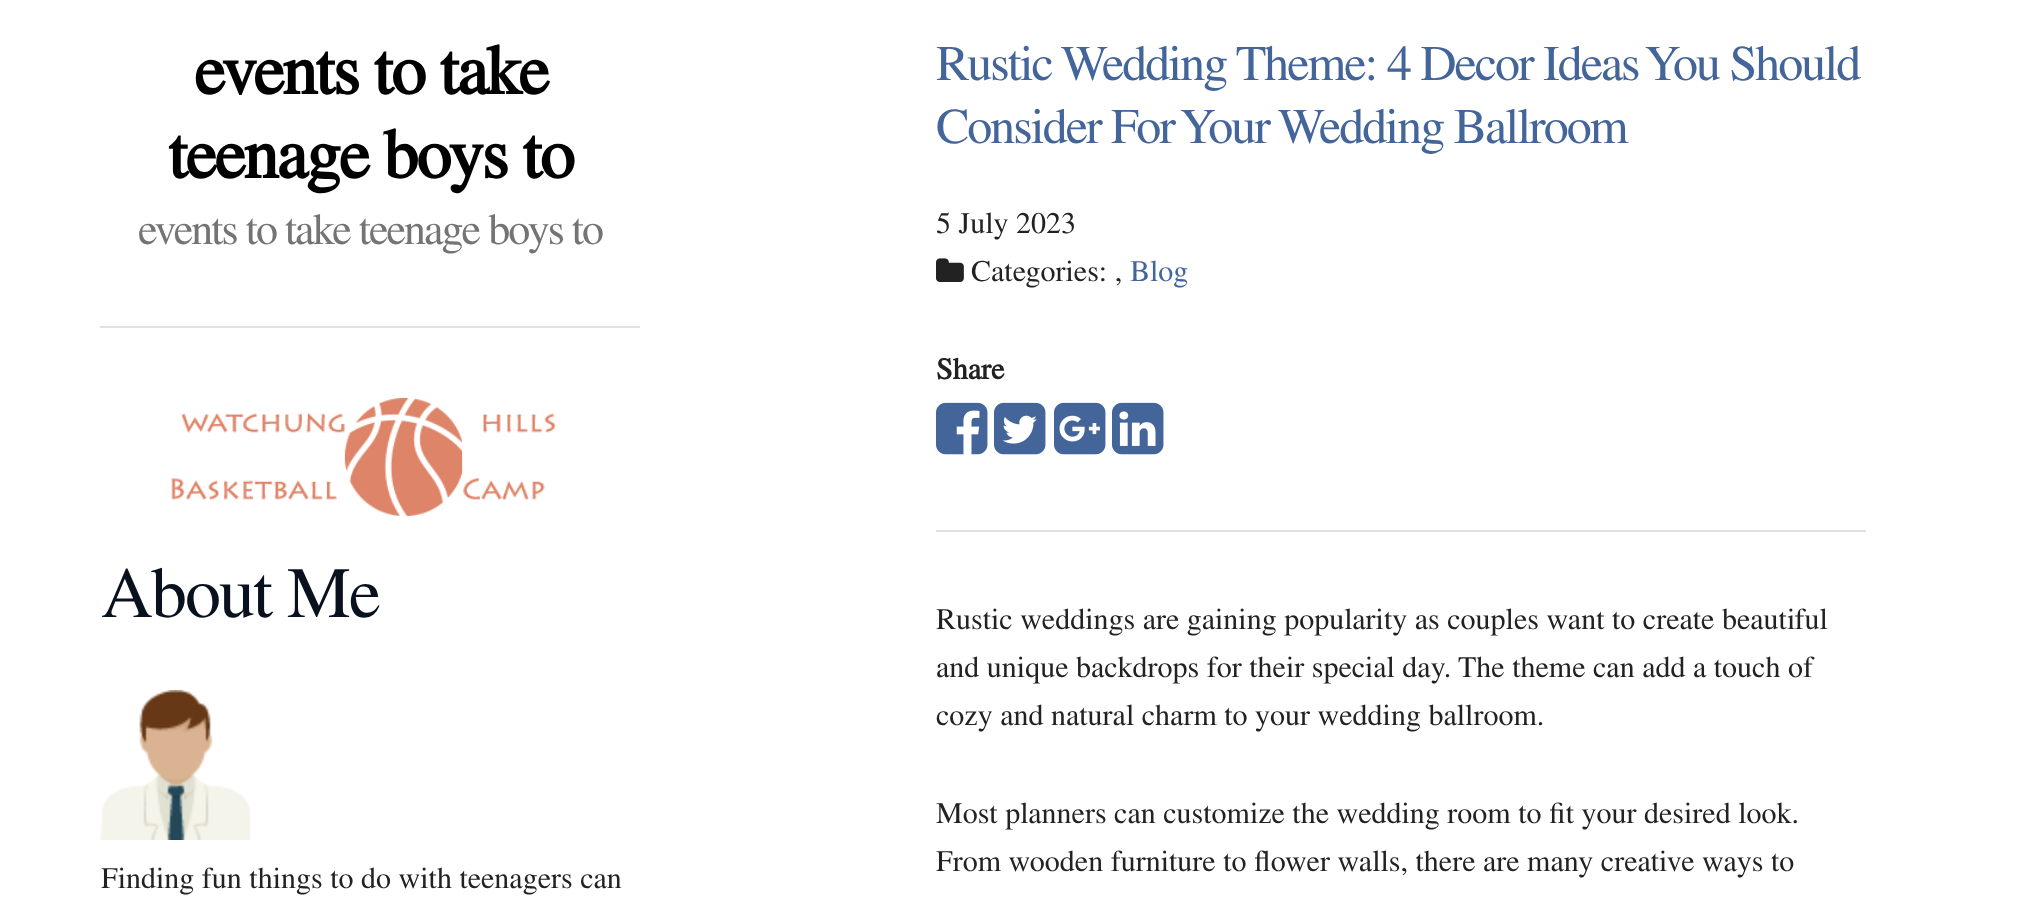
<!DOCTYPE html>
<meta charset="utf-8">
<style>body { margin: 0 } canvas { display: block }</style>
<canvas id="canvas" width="2020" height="902"></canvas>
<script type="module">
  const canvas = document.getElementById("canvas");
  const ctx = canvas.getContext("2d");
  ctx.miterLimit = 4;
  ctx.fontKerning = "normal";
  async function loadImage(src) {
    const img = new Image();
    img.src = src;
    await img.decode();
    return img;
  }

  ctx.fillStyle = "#ffffff";
  ctx.fillRect(0, 0, 2020, 902);
  ctx.letterSpacing = "-2px";
  ctx.font = "bold 70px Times";
  ctx.fillStyle = "#000000";
  ctx.fillText("events to take", 194, 94);
  ctx.fillText("teenage boys to", 168, 178);
  ctx.font = "44px Times";
  ctx.fillStyle = "#747474";
  ctx.fillText("events to take teenage boys to", 138, 244);
  ctx.fillStyle = "#e1e1e1";
  ctx.fillRect(100, 326, 540, 2);
  ctx.drawImage(await loadImage("img1.png"), 171, 398, 385, 118);
  ctx.font = "72px Times";
  ctx.fillStyle = "#09111e";
  ctx.fillText("About Me", 101, 617);
  ctx.drawImage(await loadImage("img2.png"), 100, 690, 150, 150);
  ctx.letterSpacing = "0px";
  ctx.font = "30px Times";
  ctx.fillStyle = "#222222";
  ctx.fillText("Finding fun things to do with teenagers can", 101, 888);
  ctx.letterSpacing = "-2px";
  ctx.font = "50px Times";
  ctx.fillStyle = "#43659a";
  ctx.fillText("Rustic Wedding Theme: 4 Decor Ideas You Should", 936, 80);
  ctx.fillText("Consider For Your Wedding Ballroom", 936, 143);
  ctx.letterSpacing = "0px";
  ctx.font = "30px Times";
  ctx.fillStyle = "#222222";
  ctx.fillText("5 July 2023", 936, 233);
  ctx.drawImage(await loadImage("img3.png"), 936, 258, 28, 24);
  ctx.fillText("Categories: ,", 971, 281);
  ctx.fillStyle = "#43659a";
  ctx.fillText("Blog", 1130, 281);
  ctx.font = "bold 30px Times";
  ctx.fillStyle = "#222222";
  ctx.fillText("Share", 936, 379);
  ctx.drawImage(await loadImage("img4.png"), 936, 402, 52, 53);
  ctx.drawImage(await loadImage("img5.png"), 994, 402, 52, 53);
  ctx.drawImage(await loadImage("img6.png"), 1054, 402, 52, 53);
  ctx.drawImage(await loadImage("img7.png"), 1112, 402, 52, 53);
  ctx.fillStyle = "#e1e1e1";
  ctx.fillRect(936, 530, 930, 2);
  ctx.font = "30px Times";
  ctx.fillStyle = "#222222";
  ctx.fillText("Rustic weddings are gaining popularity as couples want to create beautiful", 936, 629);
  ctx.fillText("and unique backdrops for their special day. The theme can add a touch of", 936, 677);
  ctx.fillText("cozy and natural charm to your wedding ballroom.", 936, 725);
  ctx.fillText("Most planners can customize the wedding room to fit your desired look.", 936, 823);
  ctx.fillText("From wooden furniture to flower walls, there are many creative ways to", 936, 871);
</script>
